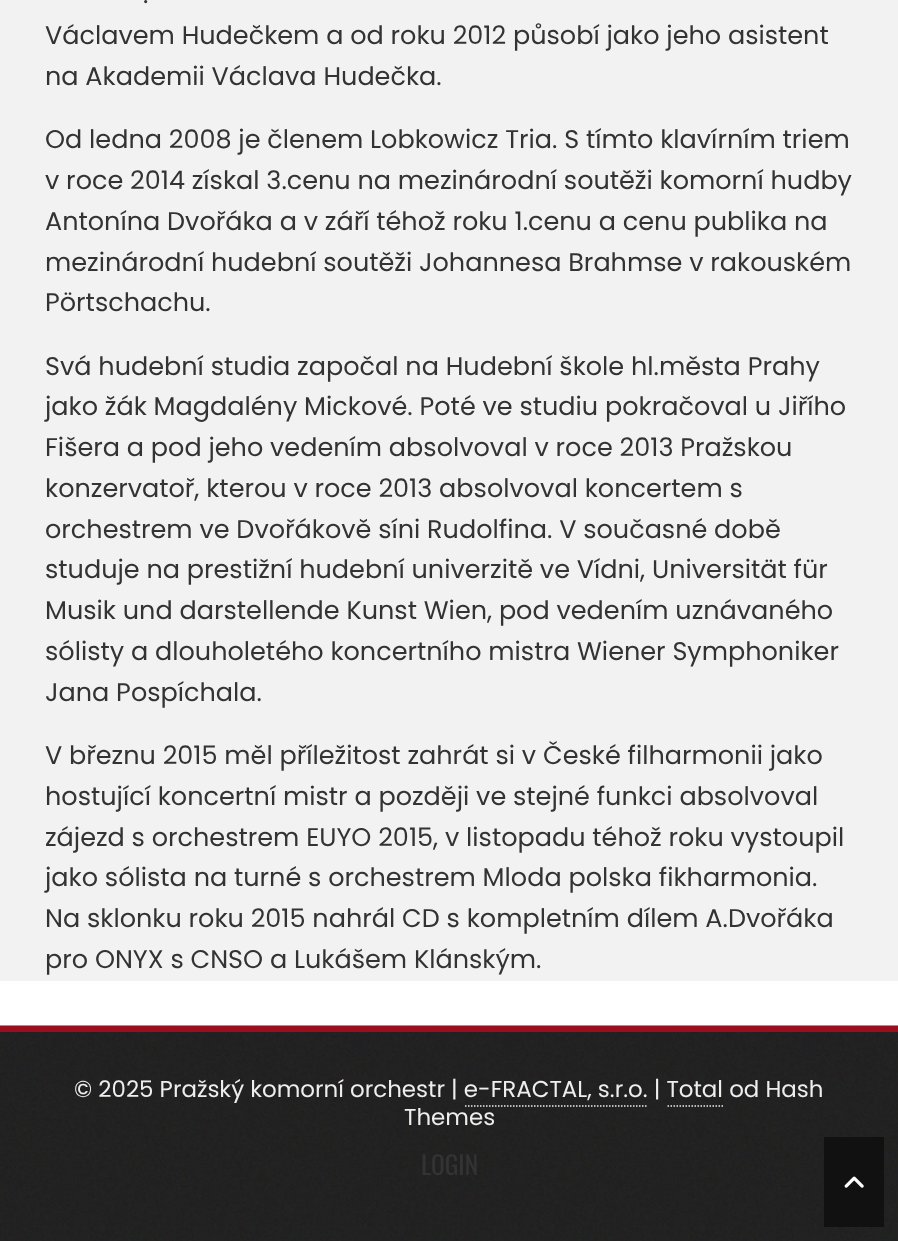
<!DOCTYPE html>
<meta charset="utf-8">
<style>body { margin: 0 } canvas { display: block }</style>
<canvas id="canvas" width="898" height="1241"></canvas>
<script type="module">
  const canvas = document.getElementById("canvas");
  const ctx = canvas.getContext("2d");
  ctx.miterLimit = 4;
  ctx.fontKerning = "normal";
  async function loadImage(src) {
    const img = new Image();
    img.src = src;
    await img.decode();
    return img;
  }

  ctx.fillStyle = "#ffffff";
  ctx.fillRect(0, 0, 898, 1241);
  ctx.fillStyle = "#f2f2f2";
  ctx.fillRect(0, 0, 898, 981);
  ctx.font = "25.5px Poppins";
  ctx.fillStyle = "#333333";
  ctx.fillText(".", 143, 3);
  ctx.fillText("Václavem Hudečkem a od roku 2012 působí jako jeho asistent", 45, 44);
  ctx.fillText("na Akademii Václava Hudečka.", 45, 85);
  ctx.fillText("Od ledna 2008 je členem Lobkowicz Tria. S tímto klavírním triem", 45, 148);
  ctx.fillText("v roce 2014 získal 3.cenu na mezinárodní soutěži komorní hudby", 45, 189);
  ctx.fillText("Antonína Dvořáka a v září téhož roku 1.cenu a cenu publika na", 45, 230);
  ctx.fillText("mezinárodní hudební soutěži Johannesa Brahmse v rakouském", 45, 271);
  ctx.fillText("Pörtschachu.", 45, 311);
  ctx.fillText("Svá hudební studia započal na Hudební škole hl.města Prahy", 45, 375);
  ctx.fillText("jako žák Magdalény Mickové. Poté ve studiu pokračoval u Jiřího", 45, 415);
  ctx.fillText("Fišera a pod jeho vedením absolvoval v roce 2013 Pražskou", 45, 456);
  ctx.fillText("konzervatoř, kterou v roce 2013 absolvoval koncertem s", 45, 497);
  ctx.fillText("orchestrem ve Dvořákově síni Rudolfina. V současné době", 45, 538);
  ctx.fillText("studuje na prestižní hudební univerzitě ve Vídni, Universität für", 45, 578);
  ctx.fillText("Musik und darstellende Kunst Wien, pod vedením uznávaného", 45, 619);
  ctx.fillText("sólisty a dlouholetého koncertního mistra Wiener Symphoniker", 45, 660);
  ctx.fillText("Jana Pospíchala.", 45, 701);
  ctx.fillText("V březnu 2015 měl příležitost zahrát si v České filharmonii jako", 45, 764);
  ctx.fillText("hostující koncertní mistr a později ve stejné funkci absolvoval", 45, 805);
  ctx.fillText("zájezd s orchestrem EUYO 2015, v listopadu téhož roku vystoupil", 45, 846);
  ctx.fillText("jako sólista na turné s orchestrem Mloda polska fikharmonia.", 45, 886);
  ctx.fillText("Na sklonku roku 2015 nahrál CD s kompletním dílem A.Dvořáka", 45, 927);
  ctx.fillText("pro ONYX s CNSO a Lukášem Klánským.", 45, 968);
  ctx.drawImage(await loadImage("img1.png"), 0, 1025, 898, 216);
  ctx.fillStyle = "#9c0e1f";
  ctx.fillRect(0, 1026, 898, 6);
  ctx.font = "22.95px Poppins";
  ctx.fillStyle = "#eeeeee";
  ctx.fillText("© 2025 Pražský komorní orchestr | e-FRACTAL, s.r.o. | Total od Hash", 74, 1097);
  ctx.beginPath();
  ctx.moveTo(465, 1106);
  ctx.lineTo(648, 1106);
  ctx.strokeStyle = "#eeeeee";
  ctx.lineWidth = 1.5;
  ctx.setLineDash([1.5, 1.5]);
  ctx.stroke();
  ctx.beginPath();
  ctx.moveTo(667.5, 1106);
  ctx.lineTo(723, 1106);
  ctx.stroke();
  ctx.fillText("Themes", 404, 1125);
  ctx.font = "25.5px Oswald";
  ctx.fillStyle = "#333333";
  ctx.fillText("LOGIN", 421, 1175);
  ctx.fillStyle = "#111111";
  ctx.fillRect(824, 1137, 60, 90);
  ctx.drawImage(await loadImage("img2.png"), 844, 1176, 20, 12);
</script>
